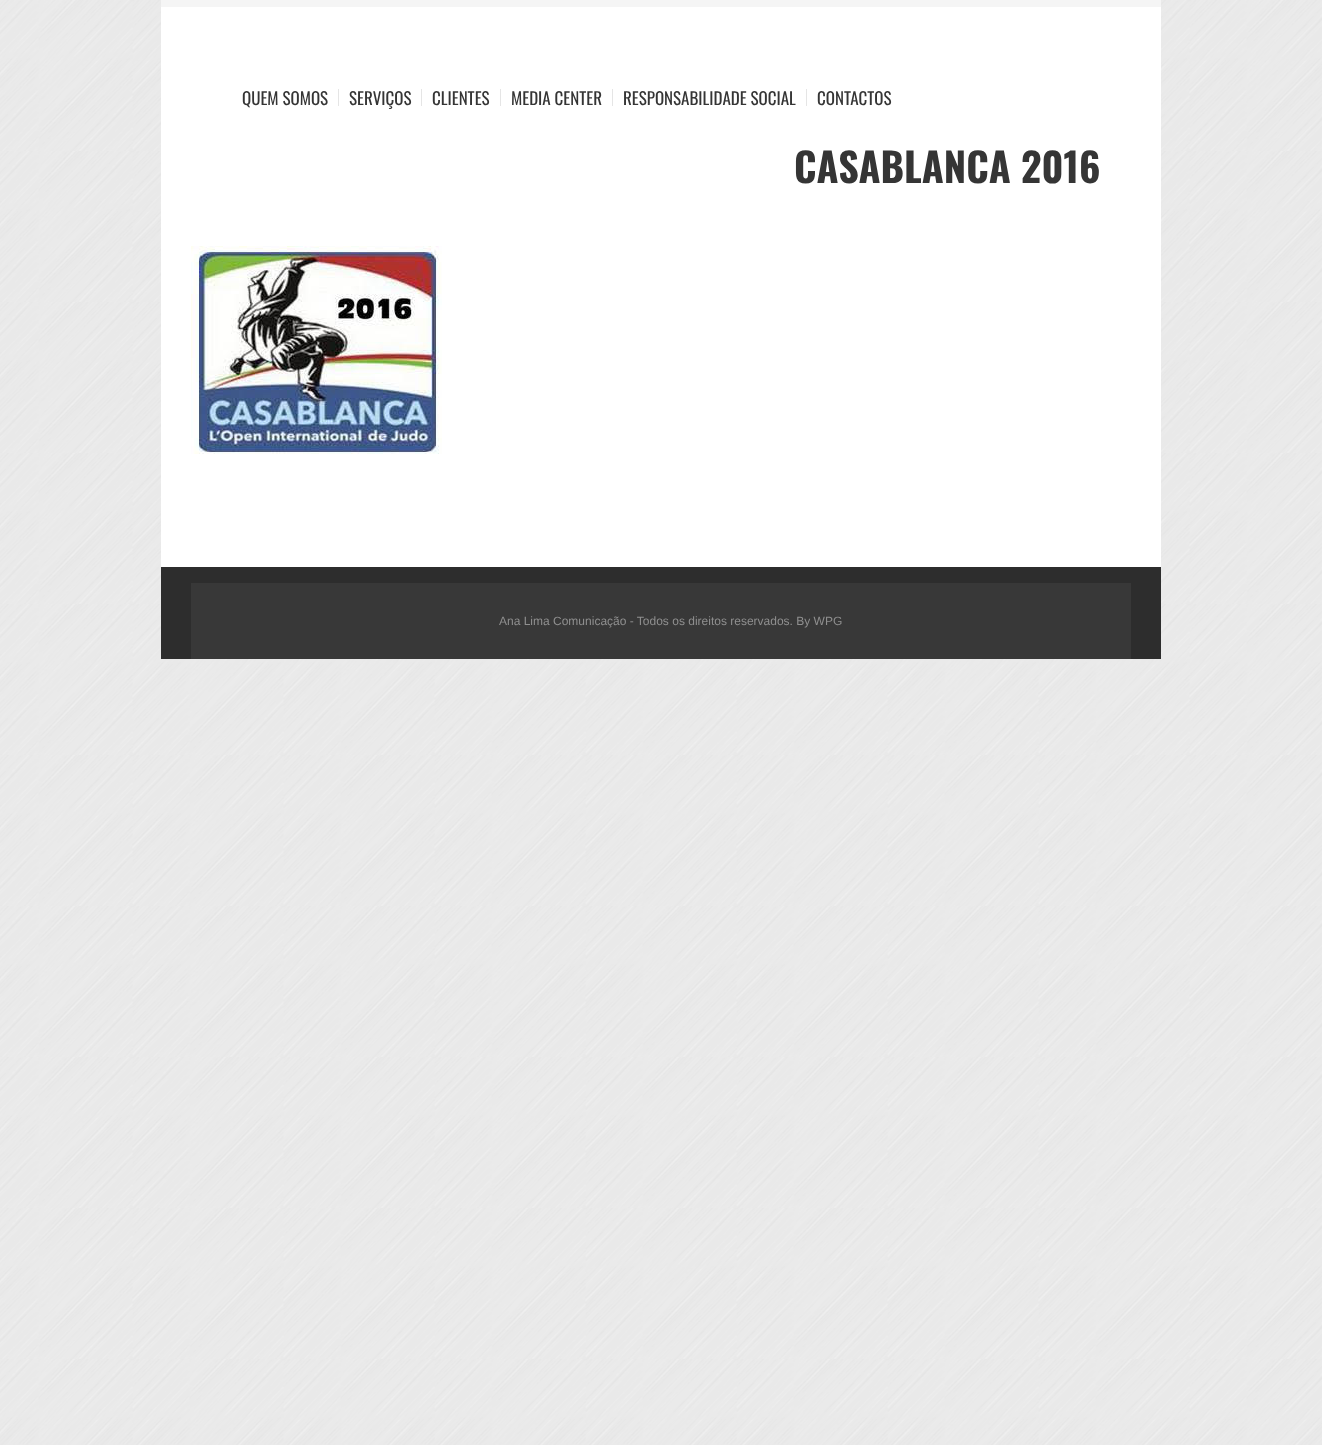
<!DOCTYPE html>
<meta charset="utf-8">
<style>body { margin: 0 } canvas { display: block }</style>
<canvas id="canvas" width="1322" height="1445"></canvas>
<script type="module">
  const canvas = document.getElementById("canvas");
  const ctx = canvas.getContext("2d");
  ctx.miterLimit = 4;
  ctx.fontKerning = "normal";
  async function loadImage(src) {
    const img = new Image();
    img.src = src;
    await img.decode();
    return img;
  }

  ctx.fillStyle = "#ffffff";
  ctx.fillRect(0, 0, 1322, 1445);
  ctx.drawImage(await loadImage("img1.png"), 0, 0, 1322, 1445);
  ctx.fillRect(161, 7, 1000, 560);
  ctx.fillStyle = "#f5f5f5";
  ctx.fillRect(161, 0, 1000, 7);
  ctx.font = "17px Oswald";
  ctx.fillStyle = "#353535";
  ctx.fillText("QUEM SOMOS", 242, 105);
  ctx.fillStyle = "#e5e5e5";
  ctx.fillRect(338, 89, 1, 17);
  ctx.fillStyle = "#353535";
  ctx.fillText("SERVIÇOS", 349, 105);
  ctx.fillStyle = "#e5e5e5";
  ctx.fillRect(421, 89, 1, 17);
  ctx.fillStyle = "#353535";
  ctx.fillText("CLIENTES", 432, 105);
  ctx.fillStyle = "#e5e5e5";
  ctx.fillRect(500, 89, 1, 17);
  ctx.fillStyle = "#353535";
  ctx.fillText("MEDIA CENTER", 511, 105);
  ctx.fillStyle = "#e5e5e5";
  ctx.fillRect(612, 89, 1, 17);
  ctx.fillStyle = "#353535";
  ctx.fillText("RESPONSABILIDADE SOCIAL", 623, 105);
  ctx.fillStyle = "#e5e5e5";
  ctx.fillRect(806, 89, 1, 17);
  ctx.fillStyle = "#353535";
  ctx.fillText("CONTACTOS", 817, 105);
  ctx.font = "bold 40px Oswald";
  ctx.fillText("CASABLANCA 2016", 794, 183);
  ctx.drawImage(await loadImage("img2.png"), 191, 246, 251, 208);
  ctx.fillStyle = "#2d2d2d";
  ctx.fillRect(161, 567, 1000, 92);
  ctx.fillStyle = "#383838";
  ctx.fillRect(191, 583, 940, 76);
  ctx.font = "12px Liberation Sans";
  ctx.fillStyle = "#8f8f8f";
  ctx.fillText("Ana Lima Comunicação - Todos os direitos reservados. By WPG", 499, 625);
</script>
